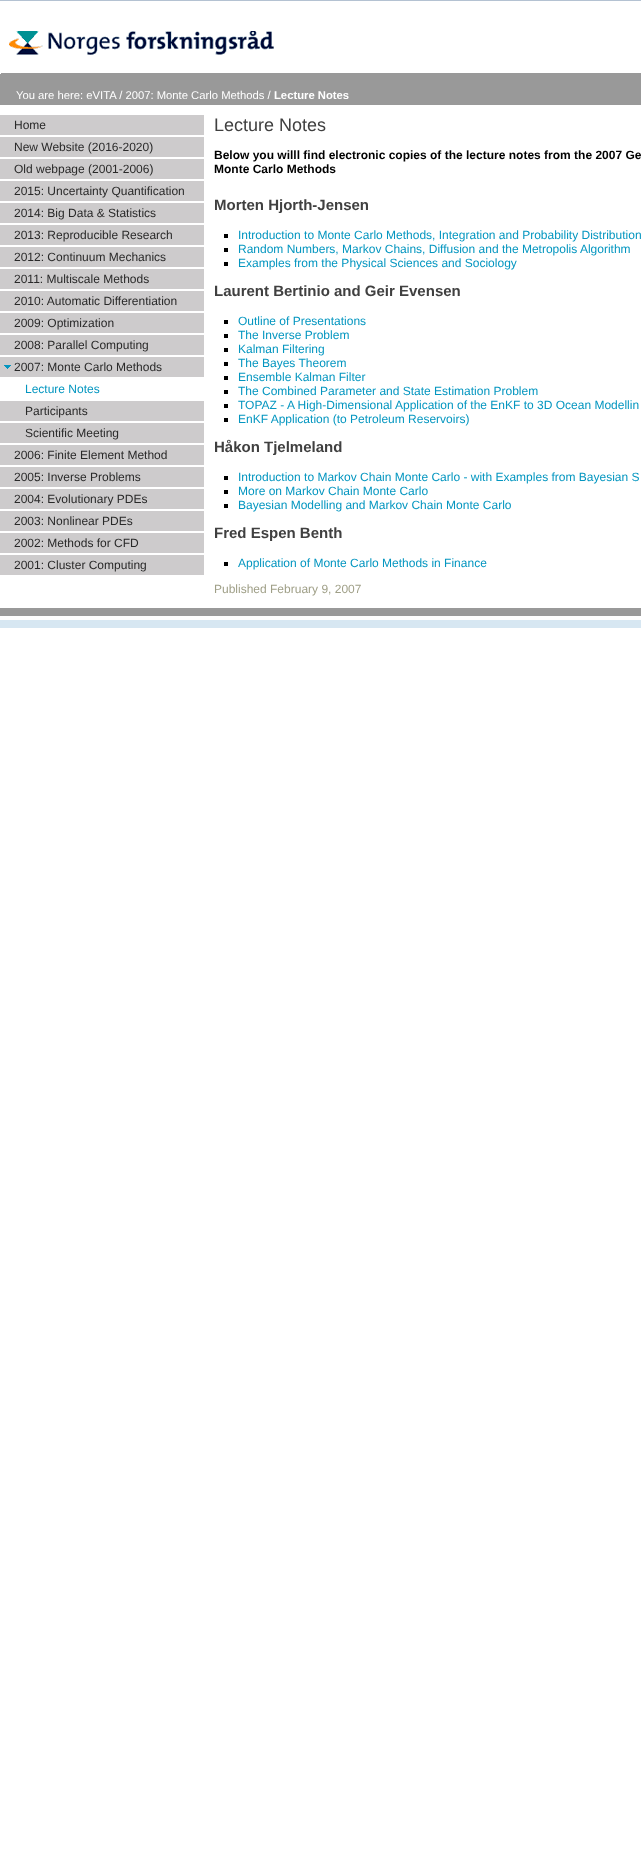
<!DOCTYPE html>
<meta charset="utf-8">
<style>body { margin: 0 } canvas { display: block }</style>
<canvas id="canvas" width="641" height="1866"></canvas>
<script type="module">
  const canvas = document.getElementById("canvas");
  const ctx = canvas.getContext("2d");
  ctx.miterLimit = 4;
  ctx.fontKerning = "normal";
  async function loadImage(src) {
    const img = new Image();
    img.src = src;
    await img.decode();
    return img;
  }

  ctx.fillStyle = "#ffffff";
  ctx.fillRect(0, 0, 641, 1866);
  ctx.fillStyle = "#b4c2d2";
  ctx.fillRect(0, 0, 641, 1);
  ctx.drawImage(await loadImage("img1.png"), 9, 31, 265, 24);
  ctx.fillStyle = "#999999";
  ctx.fillRect(0, 73, 641, 32);
  ctx.fillStyle = "#ffffff";
  ctx.fillRect(0, 73, 1, 1);
  ctx.font = "11.25px Liberation Sans";
  ctx.fillText("You are here: eVITA / 2007: Monte Carlo Methods /", 16, 99);
  ctx.font = "bold 11.25px Liberation Sans";
  ctx.fillText("Lecture Notes", 274, 99);
  ctx.fillStyle = "#999999";
  ctx.fillRect(0, 608, 641, 8);
  ctx.fillStyle = "#cdcbcc";
  ctx.fillRect(0, 115, 204, 20);
  ctx.font = "12px Liberation Sans";
  ctx.fillStyle = "#292929";
  ctx.fillText("Home", 14, 129);
  ctx.fillStyle = "#cdcbcc";
  ctx.fillRect(0, 137, 204, 20);
  ctx.fillStyle = "#292929";
  ctx.fillText("New Website (2016-2020)", 14, 151);
  ctx.fillStyle = "#cdcbcc";
  ctx.fillRect(0, 159, 204, 20);
  ctx.fillStyle = "#292929";
  ctx.fillText("Old webpage (2001-2006)", 14, 173);
  ctx.fillStyle = "#cdcbcc";
  ctx.fillRect(0, 181, 204, 20);
  ctx.fillStyle = "#292929";
  ctx.fillText("2015: Uncertainty Quantification", 14, 195);
  ctx.fillStyle = "#cdcbcc";
  ctx.fillRect(0, 203, 204, 20);
  ctx.fillStyle = "#292929";
  ctx.fillText("2014: Big Data & Statistics", 14, 217);
  ctx.fillStyle = "#cdcbcc";
  ctx.fillRect(0, 225, 204, 20);
  ctx.fillStyle = "#292929";
  ctx.fillText("2013: Reproducible Research", 14, 239);
  ctx.fillStyle = "#cdcbcc";
  ctx.fillRect(0, 247, 204, 20);
  ctx.fillStyle = "#292929";
  ctx.fillText("2012: Continuum Mechanics", 14, 261);
  ctx.fillStyle = "#cdcbcc";
  ctx.fillRect(0, 269, 204, 20);
  ctx.fillStyle = "#292929";
  ctx.fillText("2011: Multiscale Methods", 14, 283);
  ctx.fillStyle = "#cdcbcc";
  ctx.fillRect(0, 291, 204, 20);
  ctx.fillStyle = "#292929";
  ctx.fillText("2010: Automatic Differentiation", 14, 305);
  ctx.fillStyle = "#cdcbcc";
  ctx.fillRect(0, 313, 204, 20);
  ctx.fillStyle = "#292929";
  ctx.fillText("2009: Optimization", 14, 327);
  ctx.fillStyle = "#cdcbcc";
  ctx.fillRect(0, 335, 204, 20);
  ctx.fillStyle = "#292929";
  ctx.fillText("2008: Parallel Computing", 14, 349);
  ctx.fillStyle = "#cdcbcc";
  ctx.fillRect(0, 357, 204, 86);
  ctx.drawImage(await loadImage("img2.png"), 4, 365, 7, 4);
  ctx.fillStyle = "#292929";
  ctx.fillText("2007: Monte Carlo Methods", 14, 371);
  ctx.fillStyle = "#ffffff";
  ctx.fillRect(0, 377, 204, 2);
  ctx.fillRect(0, 379, 204, 22);
  ctx.fillStyle = "#0496c0";
  ctx.fillText("Lecture Notes", 25, 393);
  ctx.fillStyle = "#ffffff";
  ctx.fillRect(0, 421, 204, 2);
  ctx.fillStyle = "#292929";
  ctx.fillText("Participants", 25, 415);
  ctx.fillText("Scientific Meeting", 25, 437);
  ctx.fillStyle = "#cdcbcc";
  ctx.fillRect(0, 445, 204, 20);
  ctx.fillStyle = "#292929";
  ctx.fillText("2006: Finite Element Method", 14, 459);
  ctx.fillStyle = "#cdcbcc";
  ctx.fillRect(0, 467, 204, 20);
  ctx.fillStyle = "#292929";
  ctx.fillText("2005: Inverse Problems", 14, 481);
  ctx.fillStyle = "#cdcbcc";
  ctx.fillRect(0, 489, 204, 20);
  ctx.fillStyle = "#292929";
  ctx.fillText("2004: Evolutionary PDEs", 14, 503);
  ctx.fillStyle = "#cdcbcc";
  ctx.fillRect(0, 511, 204, 20);
  ctx.fillStyle = "#292929";
  ctx.fillText("2003: Nonlinear PDEs", 14, 525);
  ctx.fillStyle = "#cdcbcc";
  ctx.fillRect(0, 533, 204, 20);
  ctx.fillStyle = "#292929";
  ctx.fillText("2002: Methods for CFD", 14, 547);
  ctx.fillStyle = "#cdcbcc";
  ctx.fillRect(0, 555, 204, 20);
  ctx.fillStyle = "#292929";
  ctx.fillText("2001: Cluster Computing", 14, 569);
  ctx.font = "18px Liberation Sans";
  ctx.fillStyle = "#404040";
  ctx.fillText("Lecture Notes", 214, 131);
  ctx.font = "bold 12px Liberation Sans";
  ctx.fillStyle = "#000000";
  ctx.fillText("Below you willl find electronic copies of the lecture notes from the 2007 Ge", 214, 159);
  ctx.fillText("Monte Carlo Methods", 214, 173);
  ctx.font = "bold 15px Liberation Sans";
  ctx.fillStyle = "#404040";
  ctx.fillText("Morten Hjorth-Jensen", 214, 210);
  ctx.fillStyle = "#000000";
  ctx.fillRect(224, 234, 4, 4);
  ctx.font = "12px Liberation Sans";
  ctx.fillStyle = "#0496c0";
  ctx.fillText("Introduction to Monte Carlo Methods, Integration and Probability Distribution", 238, 239);
  ctx.fillStyle = "#000000";
  ctx.fillRect(224, 248, 4, 4);
  ctx.fillStyle = "#0496c0";
  ctx.fillText("Random Numbers, Markov Chains, Diffusion and the Metropolis Algorithm", 238, 253);
  ctx.fillStyle = "#000000";
  ctx.fillRect(224, 262, 4, 4);
  ctx.fillStyle = "#0496c0";
  ctx.fillText("Examples from the Physical Sciences and Sociology", 238, 267);
  ctx.font = "bold 15px Liberation Sans";
  ctx.fillStyle = "#404040";
  ctx.fillText("Laurent Bertinio and Geir Evensen", 214, 296);
  ctx.fillStyle = "#000000";
  ctx.fillRect(224, 320, 4, 4);
  ctx.font = "12px Liberation Sans";
  ctx.fillStyle = "#0496c0";
  ctx.fillText("Outline of Presentations", 238, 325);
  ctx.fillStyle = "#000000";
  ctx.fillRect(224, 334, 4, 4);
  ctx.fillStyle = "#0496c0";
  ctx.fillText("The Inverse Problem", 238, 339);
  ctx.fillStyle = "#000000";
  ctx.fillRect(224, 348, 4, 4);
  ctx.fillStyle = "#0496c0";
  ctx.fillText("Kalman Filtering", 238, 353);
  ctx.fillStyle = "#000000";
  ctx.fillRect(224, 362, 4, 4);
  ctx.fillStyle = "#0496c0";
  ctx.fillText("The Bayes Theorem", 238, 367);
  ctx.fillStyle = "#000000";
  ctx.fillRect(224, 376, 4, 4);
  ctx.fillStyle = "#0496c0";
  ctx.fillText("Ensemble Kalman Filter", 238, 381);
  ctx.fillStyle = "#000000";
  ctx.fillRect(224, 390, 4, 4);
  ctx.fillStyle = "#0496c0";
  ctx.fillText("The Combined Parameter and State Estimation Problem", 238, 395);
  ctx.fillStyle = "#000000";
  ctx.fillRect(224, 404, 4, 4);
  ctx.fillStyle = "#0496c0";
  ctx.fillText("TOPAZ - A High-Dimensional Application of the EnKF to 3D Ocean Modellin", 238, 409);
  ctx.fillStyle = "#000000";
  ctx.fillRect(224, 418, 4, 4);
  ctx.fillStyle = "#0496c0";
  ctx.fillText("EnKF Application (to Petroleum Reservoirs)", 238, 423);
  ctx.font = "bold 15px Liberation Sans";
  ctx.fillStyle = "#404040";
  ctx.fillText("Håkon Tjelmeland", 214, 452);
  ctx.fillStyle = "#000000";
  ctx.fillRect(224, 476, 4, 4);
  ctx.font = "12px Liberation Sans";
  ctx.fillStyle = "#0496c0";
  ctx.fillText("Introduction to Markov Chain Monte Carlo - with Examples from Bayesian S", 238, 481);
  ctx.fillStyle = "#000000";
  ctx.fillRect(224, 490, 4, 4);
  ctx.fillStyle = "#0496c0";
  ctx.fillText("More on Markov Chain Monte Carlo", 238, 495);
  ctx.fillStyle = "#000000";
  ctx.fillRect(224, 504, 4, 4);
  ctx.fillStyle = "#0496c0";
  ctx.fillText("Bayesian Modelling and Markov Chain Monte Carlo", 238, 509);
  ctx.font = "bold 15px Liberation Sans";
  ctx.fillStyle = "#404040";
  ctx.fillText("Fred Espen Benth", 214, 538);
  ctx.fillStyle = "#000000";
  ctx.fillRect(224, 562, 4, 4);
  ctx.font = "12px Liberation Sans";
  ctx.fillStyle = "#0496c0";
  ctx.fillText("Application of Monte Carlo Methods in Finance", 238, 567);
  ctx.fillStyle = "#9f9f87";
  ctx.fillText("Published February 9, 2007", 214, 593);
  ctx.fillStyle = "#d7e7f2";
  ctx.fillRect(0, 620, 641, 8);
</script>
